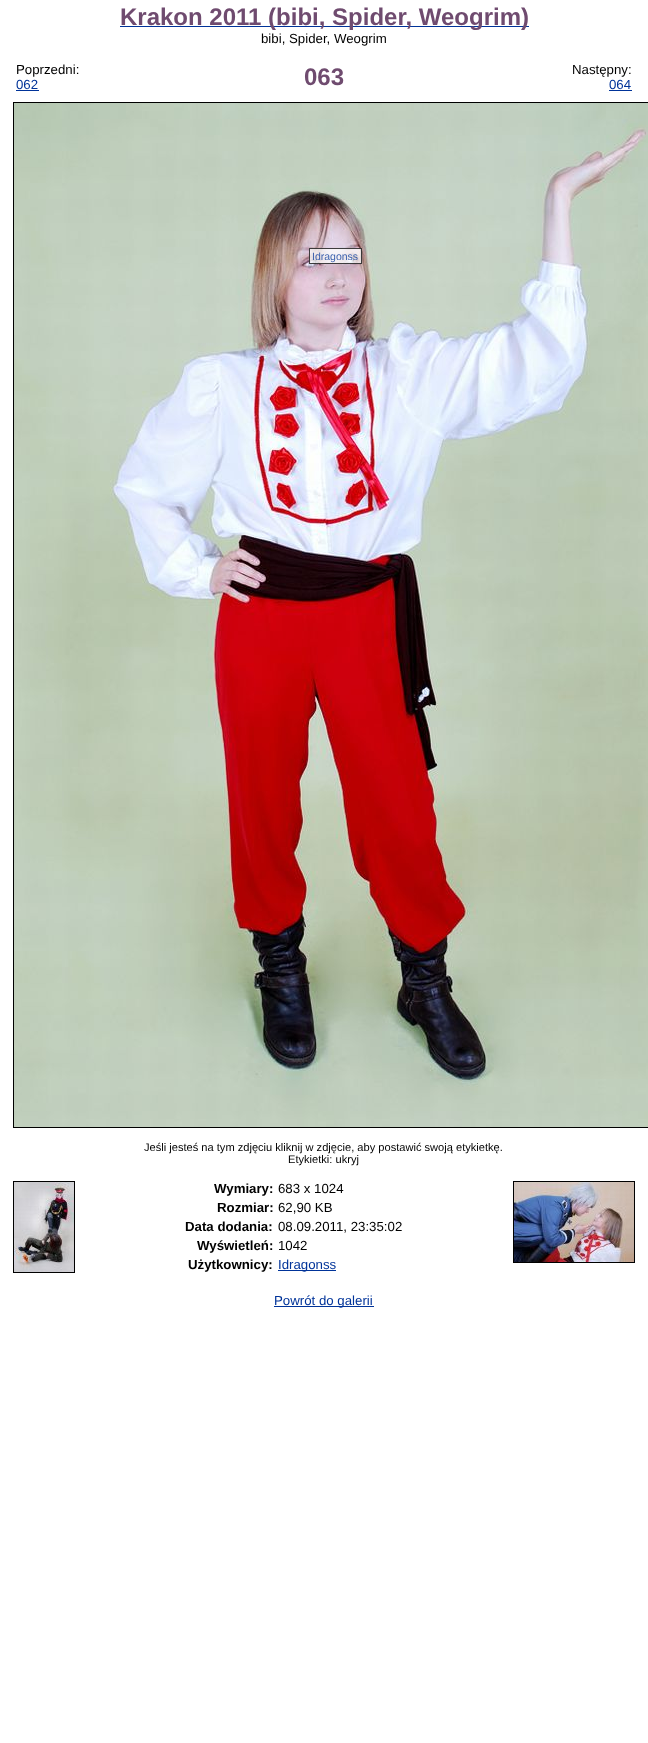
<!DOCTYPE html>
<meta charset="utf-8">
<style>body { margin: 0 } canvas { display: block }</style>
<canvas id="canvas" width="648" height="1743"></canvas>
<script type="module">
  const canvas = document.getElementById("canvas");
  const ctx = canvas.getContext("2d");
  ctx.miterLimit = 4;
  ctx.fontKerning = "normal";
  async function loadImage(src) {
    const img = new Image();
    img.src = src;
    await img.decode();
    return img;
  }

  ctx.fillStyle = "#ffffff";
  ctx.fillRect(0, 0, 648, 1743);
  ctx.fillStyle = "#003399";
  ctx.fillRect(120, 26, 409, 1);
  ctx.font = "bold 24px Liberation Sans";
  ctx.fillStyle = "#6f4b6f";
  ctx.fillText("Krakon 2011 (bibi, Spider, Weogrim)", 120, 25);
  ctx.font = "13.25px Liberation Sans";
  ctx.fillStyle = "#000000";
  ctx.fillText("bibi, Spider, Weogrim", 261, 43);
  ctx.fillText("Poprzedni:", 16, 74);
  ctx.fillStyle = "#003399";
  ctx.fillText("062", 16, 89);
  ctx.fillRect(16, 90, 23, 1);
  ctx.font = "bold 24px Liberation Sans";
  ctx.fillStyle = "#6f4b6f";
  ctx.fillText("063", 304, 85);
  ctx.font = "13.25px Liberation Sans";
  ctx.fillStyle = "#000000";
  ctx.fillText("Następny:", 572, 74);
  ctx.fillStyle = "#003399";
  ctx.fillText("064", 609, 89);
  ctx.fillRect(609, 90, 23, 1);
  ctx.strokeStyle = "#000000";
  ctx.strokeRect(13.5, 102.5, 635, 1025);
  ctx.drawImage(await loadImage("img1.png"), 14, 103, 634, 1024);
  ctx.fillStyle = "rgba(255, 255, 255, 0.75)";
  ctx.fillRect(309, 248, 53, 16);
  ctx.strokeStyle = "rgba(0, 0, 0, 0.75)";
  ctx.strokeRect(309.5, 248.5, 52, 15);
  ctx.font = "10.5px Liberation Sans";
  ctx.fillStyle = "#3b60ad";
  ctx.fillText("Idragonss", 312, 260);
  ctx.font = "11.1px Liberation Sans";
  ctx.fillStyle = "#000000";
  ctx.fillText("Jeśli jesteś na tym zdjęciu kliknij w zdjęcie, aby postawić swoją etykietkę.", 144, 1151);
  ctx.fillText("Etykietki: ukryj", 288, 1163);
  ctx.strokeStyle = "#000000";
  ctx.strokeRect(13.5, 1181.5, 61, 91);
  ctx.drawImage(await loadImage("img2.png"), 14, 1182, 60, 90);
  ctx.font = "bold 13.25px Liberation Sans";
  ctx.fillText("Wymiary:", 214, 1193);
  ctx.font = "13.25px Liberation Sans";
  ctx.fillText("683 x 1024", 278, 1193);
  ctx.font = "bold 13.25px Liberation Sans";
  ctx.fillText("Rozmiar:", 217, 1212);
  ctx.font = "13.25px Liberation Sans";
  ctx.fillText("62,90 KB", 278, 1212);
  ctx.font = "bold 13.25px Liberation Sans";
  ctx.fillText("Data dodania:", 185, 1231);
  ctx.font = "13.25px Liberation Sans";
  ctx.fillText("08.09.2011, 23:35:02", 278, 1231);
  ctx.font = "bold 13.25px Liberation Sans";
  ctx.fillText("Wyświetleń:", 197, 1250);
  ctx.font = "13.25px Liberation Sans";
  ctx.fillText("1042", 278, 1250);
  ctx.font = "bold 13.25px Liberation Sans";
  ctx.fillText("Użytkownicy:", 188, 1269);
  ctx.fillStyle = "#003399";
  ctx.fillRect(278, 1270, 58, 1);
  ctx.font = "13.25px Liberation Sans";
  ctx.fillText("Idragonss", 278, 1269);
  ctx.strokeRect(513.5, 1181.5, 121, 81);
  ctx.drawImage(await loadImage("img3.png"), 514, 1182, 120, 80);
  ctx.fillRect(274, 1306, 100, 1);
  ctx.fillText("Powrót do galerii", 274, 1305);
</script>
